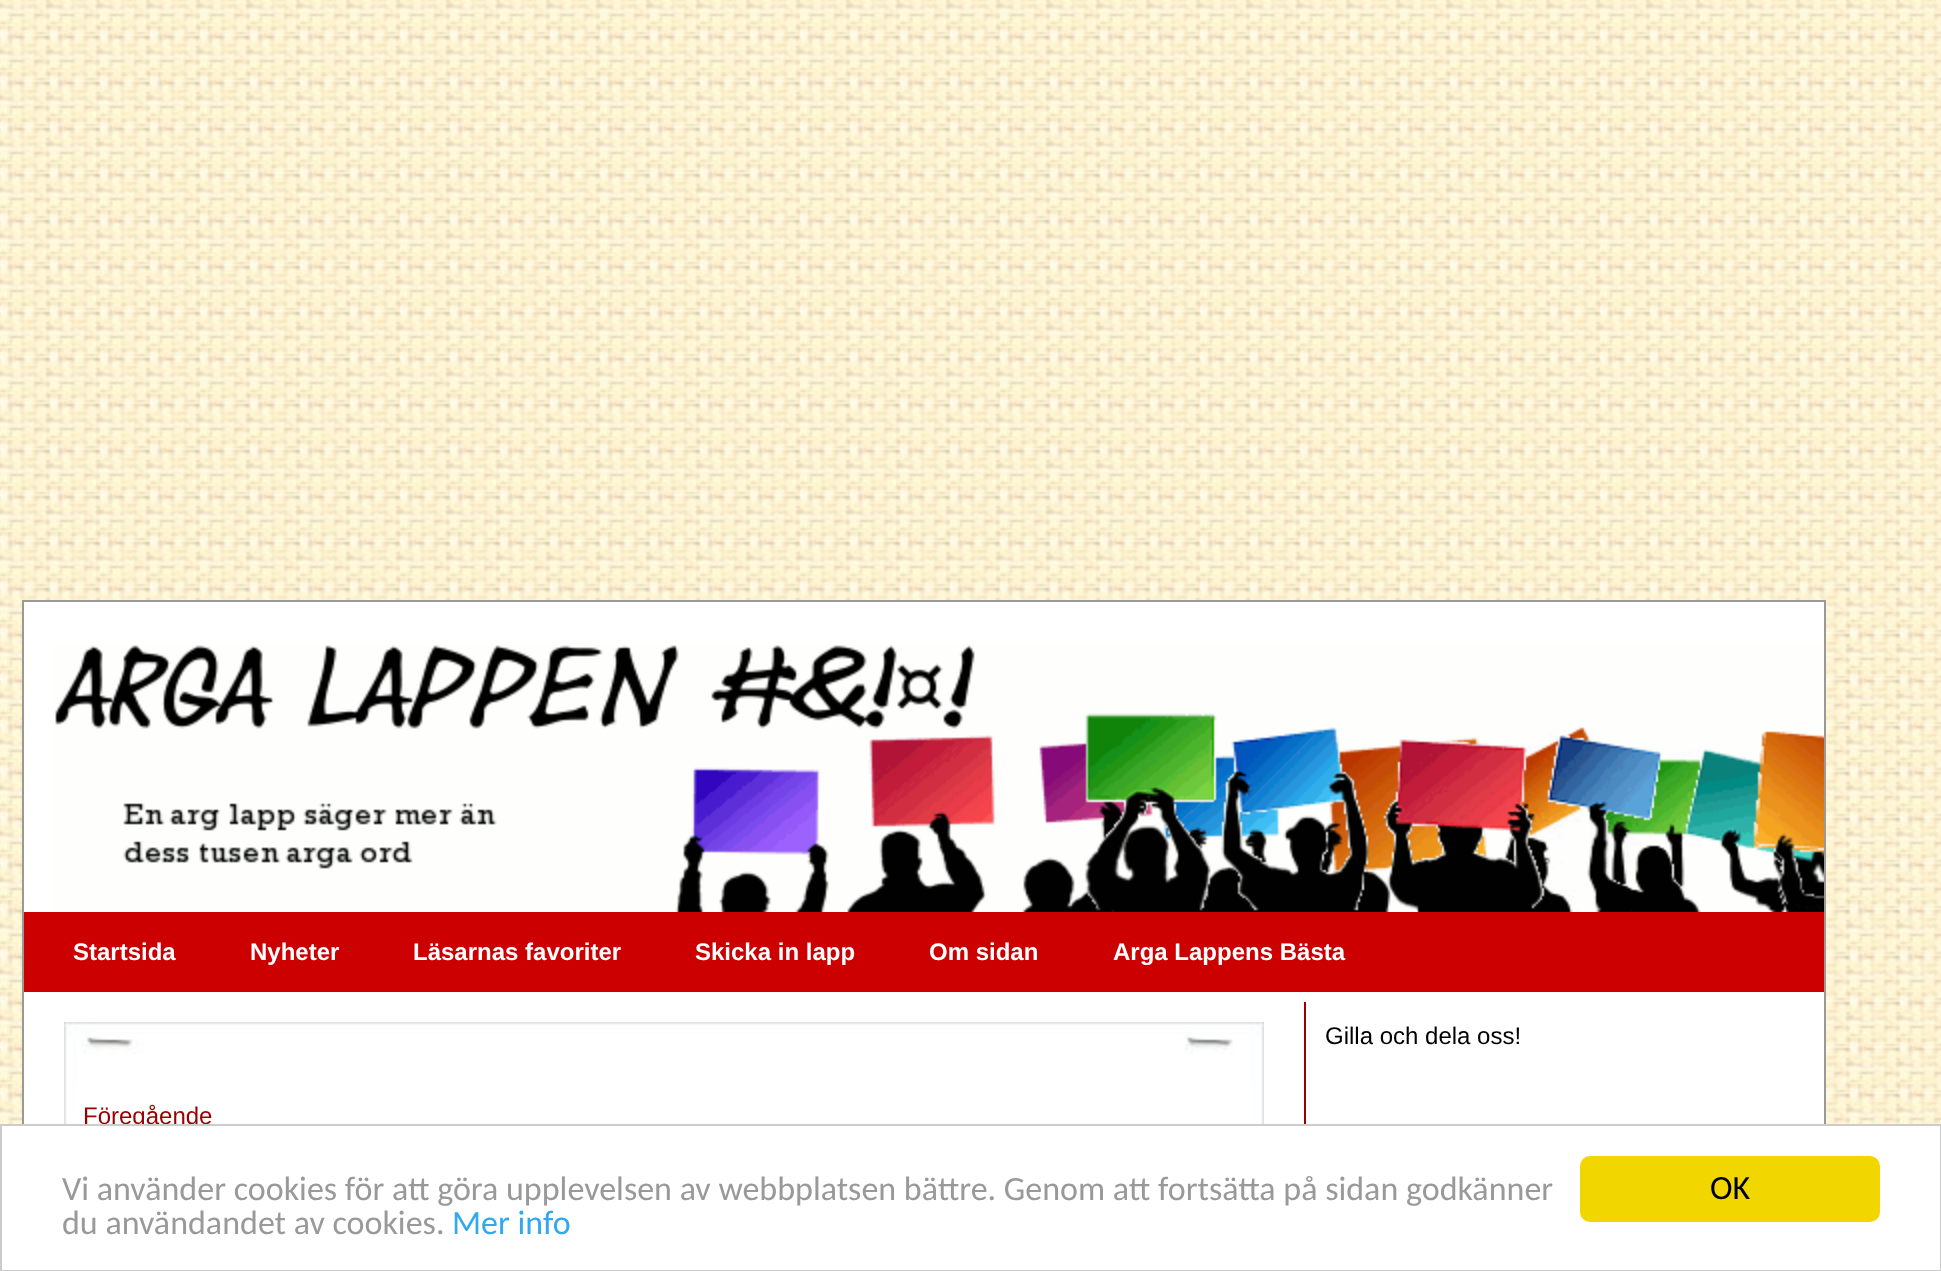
<!DOCTYPE html>
<meta charset="utf-8">
<style>body { margin: 0 } canvas { display: block }</style>
<canvas id="canvas" width="1941" height="1271"></canvas>
<script type="module">
  const canvas = document.getElementById("canvas");
  const ctx = canvas.getContext("2d");
  ctx.miterLimit = 4;
  ctx.fontKerning = "normal";
  async function loadImage(src) {
    const img = new Image();
    img.src = src;
    await img.decode();
    return img;
  }

  ctx.fillStyle = "#ffffff";
  ctx.fillRect(0, 0, 1941, 1271);
  ctx.drawImage(await loadImage("img1.png"), 0, 0, 1941, 1124);
  ctx.fillRect(24, 602, 1800, 522);
  ctx.strokeStyle = "#999999";
  ctx.lineWidth = 2;
  ctx.strokeRect(23, 601, 1802, 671);
  ctx.drawImage(await loadImage("img2.png"), 54, 645, 1770, 267);
  ctx.fillStyle = "#cc0000";
  ctx.fillRect(24, 912, 1800, 80);
  ctx.font = "bold 24px Liberation Sans";
  ctx.fillStyle = "#ffffff";
  ctx.fillText("Startsida", 73, 960);
  ctx.fillText("Nyheter", 250, 960);
  ctx.fillText("Läsarnas favoriter", 413, 960);
  ctx.fillText("Skicka in lapp", 695, 960);
  ctx.fillText("Om sidan", 929, 960);
  ctx.fillText("Arga Lappens Bästa", 1113, 960);
  ctx.fillStyle = "#990000";
  ctx.fillRect(1304, 1002, 2, 122);
  ctx.font = "24px Liberation Sans";
  ctx.fillStyle = "#000000";
  ctx.fillText("Gilla och dela oss!", 1325, 1044);
  ctx.drawImage(await loadImage("img3.png"), 64, 1022, 1200, 60);
  ctx.drawImage(await loadImage("img4.png"), 64, 1082, 1200, 42);
  ctx.fillStyle = "#990000";
  ctx.fillText("Föregående", 83, 1124);
  ctx.fillStyle = "#ffffff";
  ctx.fillRect(22, 1126, 1804, 144);
  ctx.strokeStyle = "#cccccc";
  ctx.strokeRect(1, 1125, 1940, 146);
  ctx.font = "34px Carlito";
  ctx.fillStyle = "#999999";
  ctx.fillText("Vi använder cookies för att göra upplevelsen av webbplatsen bättre. Genom att fortsätta på sidan godkänner", 62, 1200);
  ctx.fillText("du användandet av cookies.", 62, 1234);
  ctx.fillStyle = "#31a8f0";
  ctx.fillText("Mer info", 452, 1234);
  ctx.fillStyle = "#f1d600";
  ctx.beginPath();
  ctx.roundRect(1580, 1156, 300, 66, 10);
  ctx.fill();
  ctx.fillStyle = "#000000";
  ctx.fillText("OK", 1710, 1199);
</script>
